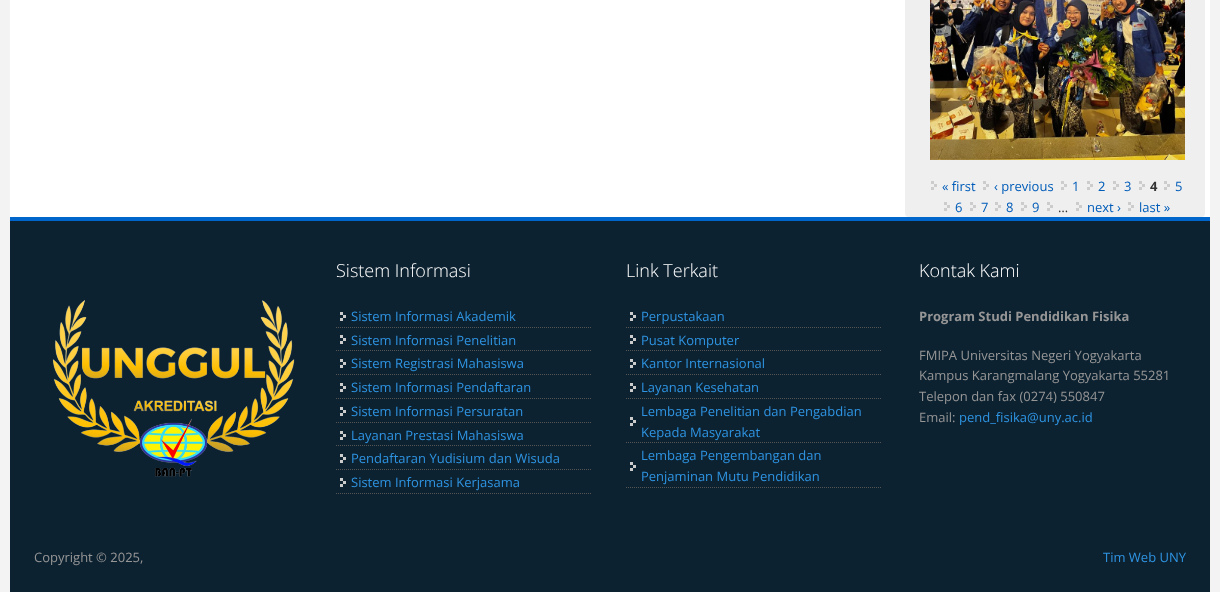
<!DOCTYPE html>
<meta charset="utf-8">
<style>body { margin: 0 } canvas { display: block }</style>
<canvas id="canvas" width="1220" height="592"></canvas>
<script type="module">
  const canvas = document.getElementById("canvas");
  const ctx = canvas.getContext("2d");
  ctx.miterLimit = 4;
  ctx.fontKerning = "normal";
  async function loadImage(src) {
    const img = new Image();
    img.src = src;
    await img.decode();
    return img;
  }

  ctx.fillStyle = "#f3f3f3";
  ctx.fillRect(0, 0, 1220, 592);
  ctx.fillStyle = "#ffffff";
  ctx.fillRect(10, 0, 1200, 217);
  ctx.fillStyle = "#efefef";
  ctx.beginPath();
  ctx.roundRect(905, -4, 300, 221, 4);
  ctx.fill();
  ctx.drawImage(await loadImage("img1.png"), 930, 0, 255, 160);
  ctx.drawImage(await loadImage("img2.png"), 931, 181, 6, 9);
  ctx.font = "13px Open Sans";
  ctx.fillStyle = "#005cb9";
  ctx.fillText("« first", 942, 191);
  ctx.drawImage(await loadImage("img2.png"), 983, 181, 6, 9);
  ctx.fillText("‹ previous", 994, 191);
  ctx.drawImage(await loadImage("img2.png"), 1061, 181, 6, 9);
  ctx.fillText("1", 1072, 191);
  ctx.drawImage(await loadImage("img2.png"), 1087, 181, 6, 9);
  ctx.fillText("2", 1098, 191);
  ctx.drawImage(await loadImage("img2.png"), 1113, 181, 6, 9);
  ctx.fillText("3", 1124, 191);
  ctx.drawImage(await loadImage("img2.png"), 1139, 181, 6, 9);
  ctx.font = "bold 13px Open Sans";
  ctx.fillStyle = "#333333";
  ctx.fillText("4", 1150, 191);
  ctx.drawImage(await loadImage("img2.png"), 1164, 181, 6, 9);
  ctx.font = "13px Open Sans";
  ctx.fillStyle = "#005cb9";
  ctx.fillText("5", 1175, 191);
  ctx.drawImage(await loadImage("img2.png"), 944, 202, 6, 9);
  ctx.fillText("6", 955, 212);
  ctx.drawImage(await loadImage("img2.png"), 970, 202, 6, 9);
  ctx.fillText("7", 981, 212);
  ctx.drawImage(await loadImage("img2.png"), 995, 202, 6, 9);
  ctx.fillText("8", 1006, 212);
  ctx.drawImage(await loadImage("img2.png"), 1021, 202, 6, 9);
  ctx.fillText("9", 1032, 212);
  ctx.drawImage(await loadImage("img2.png"), 1047, 202, 6, 9);
  ctx.fillStyle = "#333333";
  ctx.fillText("…", 1058, 212);
  ctx.drawImage(await loadImage("img2.png"), 1076, 202, 6, 9);
  ctx.fillStyle = "#005cb9";
  ctx.fillText("next ›", 1087, 212);
  ctx.drawImage(await loadImage("img2.png"), 1128, 202, 6, 9);
  ctx.fillText("last »", 1139, 212);
  ctx.fillStyle = "#0d2231";
  ctx.fillRect(10, 221, 1200, 371);
  ctx.fillStyle = "#0066cc";
  ctx.fillRect(10, 217, 1200, 4);
  ctx.drawImage(await loadImage("img3.png"), 52, 300, 243, 177);
  ctx.font = "300 18px Open Sans";
  ctx.fillStyle = "#ffffff";
  ctx.fillText("Sistem Informasi", 336, 277);
  ctx.drawImage(await loadImage("img4.png"), 340, 312, 6, 9);
  ctx.beginPath();
  ctx.moveTo(336, 327.5);
  ctx.lineTo(592, 327.5);
  ctx.strokeStyle = "#555555";
  ctx.setLineDash([1, 1]);
  ctx.stroke();
  ctx.font = "13px Open Sans";
  ctx.fillStyle = "#2e94e2";
  ctx.fillText("Sistem Informasi Akademik", 351, 321);
  ctx.drawImage(await loadImage("img4.png"), 340, 335, 6, 9);
  ctx.beginPath();
  ctx.moveTo(336, 350.5);
  ctx.lineTo(592, 350.5);
  ctx.stroke();
  ctx.fillText("Sistem Informasi Penelitian", 351, 345);
  ctx.drawImage(await loadImage("img4.png"), 340, 359, 6, 9);
  ctx.beginPath();
  ctx.moveTo(336, 374.5);
  ctx.lineTo(592, 374.5);
  ctx.stroke();
  ctx.fillText("Sistem Registrasi Mahasiswa", 351, 368);
  ctx.drawImage(await loadImage("img4.png"), 340, 383, 6, 9);
  ctx.beginPath();
  ctx.moveTo(336, 398.5);
  ctx.lineTo(592, 398.5);
  ctx.stroke();
  ctx.fillText("Sistem Informasi Pendaftaran", 351, 392);
  ctx.drawImage(await loadImage("img4.png"), 340, 407, 6, 9);
  ctx.beginPath();
  ctx.moveTo(336, 422.5);
  ctx.lineTo(592, 422.5);
  ctx.stroke();
  ctx.fillText("Sistem Informasi Persuratan", 351, 416);
  ctx.drawImage(await loadImage("img4.png"), 340, 431, 6, 9);
  ctx.beginPath();
  ctx.moveTo(336, 445.5);
  ctx.lineTo(592, 445.5);
  ctx.stroke();
  ctx.fillText("Layanan Prestasi Mahasiswa", 351, 440);
  ctx.drawImage(await loadImage("img4.png"), 340, 454, 6, 9);
  ctx.beginPath();
  ctx.moveTo(336, 469.5);
  ctx.lineTo(592, 469.5);
  ctx.stroke();
  ctx.fillText("Pendaftaran Yudisium dan Wisuda", 351, 463);
  ctx.drawImage(await loadImage("img4.png"), 340, 478, 6, 9);
  ctx.beginPath();
  ctx.moveTo(336, 493.5);
  ctx.lineTo(592, 493.5);
  ctx.stroke();
  ctx.fillText("Sistem Informasi Kerjasama", 351, 487);
  ctx.font = "300 18px Open Sans";
  ctx.fillStyle = "#ffffff";
  ctx.fillText("Link Terkait", 626, 277);
  ctx.drawImage(await loadImage("img4.png"), 630, 312, 6, 9);
  ctx.beginPath();
  ctx.moveTo(626, 327.5);
  ctx.lineTo(882, 327.5);
  ctx.stroke();
  ctx.font = "13px Open Sans";
  ctx.fillStyle = "#2e94e2";
  ctx.fillText("Perpustakaan", 641, 321);
  ctx.drawImage(await loadImage("img4.png"), 630, 335, 6, 9);
  ctx.beginPath();
  ctx.moveTo(626, 350.5);
  ctx.lineTo(882, 350.5);
  ctx.stroke();
  ctx.fillText("Pusat Komputer", 641, 345);
  ctx.drawImage(await loadImage("img4.png"), 630, 359, 6, 9);
  ctx.beginPath();
  ctx.moveTo(626, 374.5);
  ctx.lineTo(882, 374.5);
  ctx.stroke();
  ctx.fillText("Kantor Internasional", 641, 368);
  ctx.drawImage(await loadImage("img4.png"), 630, 383, 6, 9);
  ctx.beginPath();
  ctx.moveTo(626, 398.5);
  ctx.lineTo(882, 398.5);
  ctx.stroke();
  ctx.fillText("Layanan Kesehatan", 641, 392);
  ctx.drawImage(await loadImage("img4.png"), 630, 417, 6, 9);
  ctx.beginPath();
  ctx.moveTo(626, 442.5);
  ctx.lineTo(882, 442.5);
  ctx.stroke();
  ctx.fillText("Lembaga Penelitian dan Pengabdian", 641, 416);
  ctx.fillText("Kepada Masyarakat", 641, 437);
  ctx.drawImage(await loadImage("img4.png"), 630, 462, 6, 9);
  ctx.beginPath();
  ctx.moveTo(626, 487.5);
  ctx.lineTo(882, 487.5);
  ctx.stroke();
  ctx.fillText("Lembaga Pengembangan dan", 641, 460);
  ctx.fillText("Penjaminan Mutu Pendidikan", 641, 481);
  ctx.font = "300 18px Open Sans";
  ctx.fillStyle = "#ffffff";
  ctx.fillText("Kontak Kami", 919, 277);
  ctx.font = "bold 13px Open Sans";
  ctx.fillStyle = "#969696";
  ctx.fillText("Program Studi Pendidikan Fisika", 919, 321);
  ctx.font = "13px Open Sans";
  ctx.fillText("FMIPA Universitas Negeri Yogyakarta", 919, 360);
  ctx.fillText("Kampus Karangmalang Yogyakarta 55281", 919, 380);
  ctx.fillText("Telepon dan fax (0274) 550847", 919, 401);
  ctx.fillText("Email:", 919, 422);
  ctx.fillStyle = "#2e94e2";
  ctx.fillText("pend_fisika@uny.ac.id", 959, 422);
  ctx.fillStyle = "#969696";
  ctx.fillText("Copyright © 2025,", 34, 562);
  ctx.fillStyle = "#2e94e2";
  ctx.fillText("Tim Web UNY", 1103, 562);
</script>
